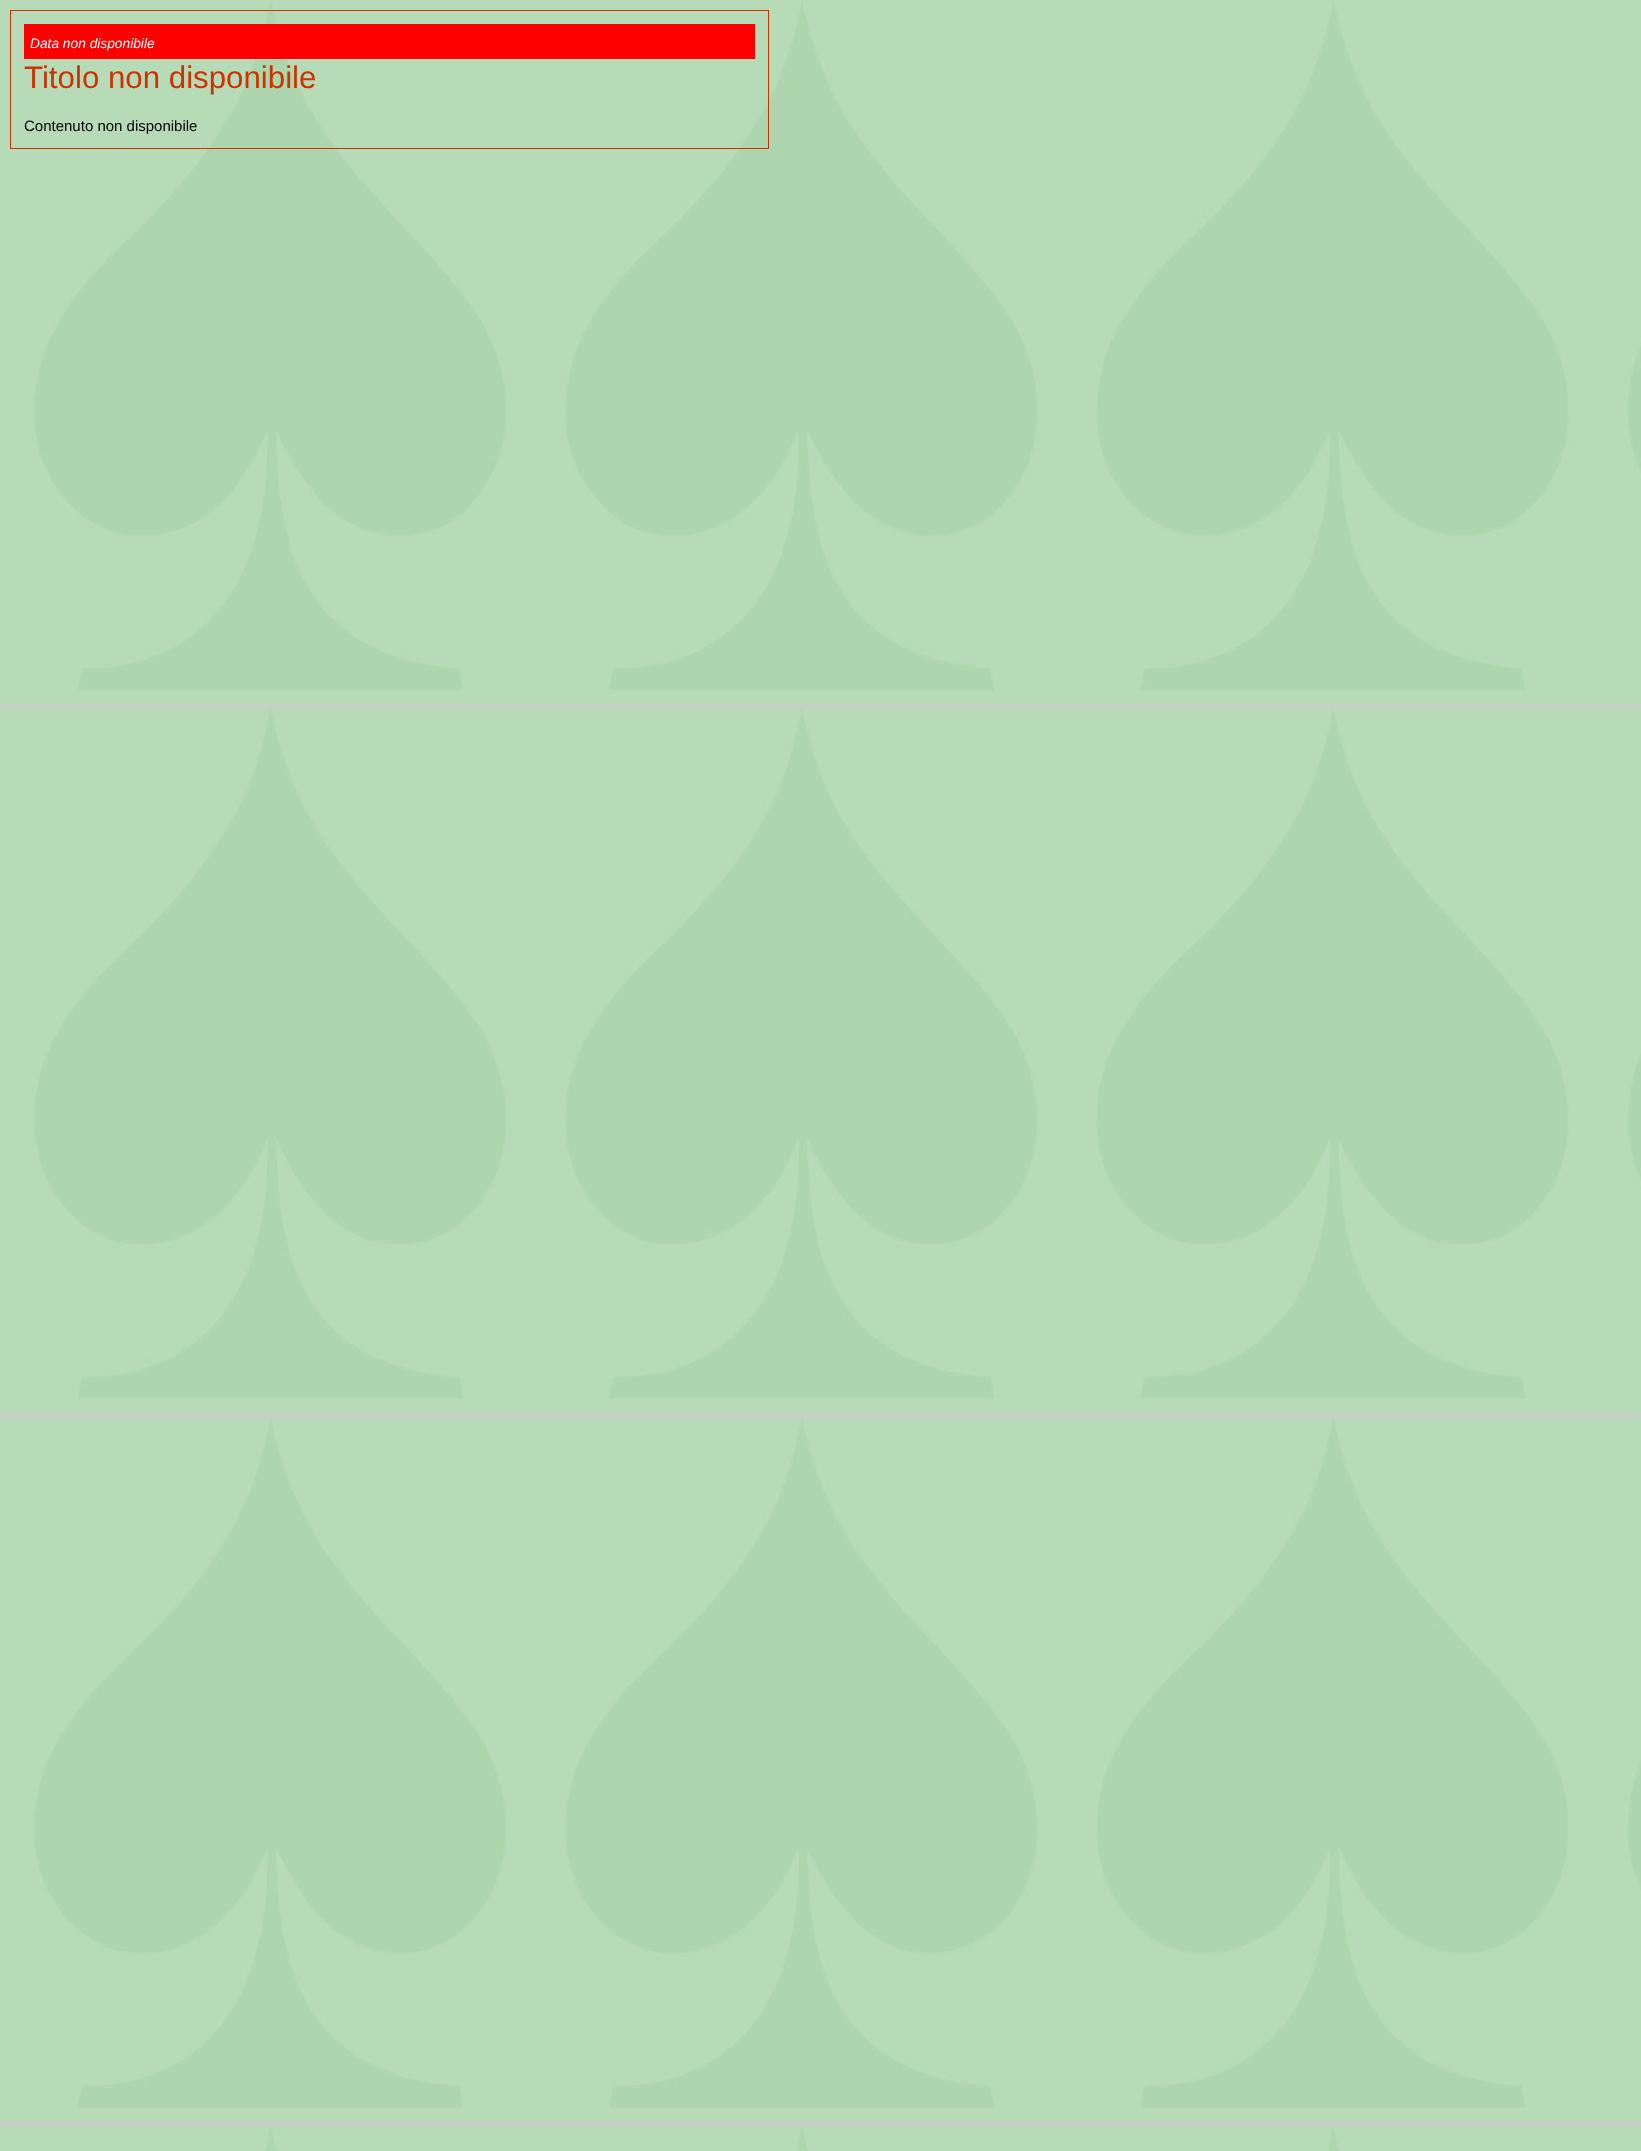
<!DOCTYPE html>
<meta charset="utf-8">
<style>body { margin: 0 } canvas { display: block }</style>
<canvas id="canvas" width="1641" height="2151"></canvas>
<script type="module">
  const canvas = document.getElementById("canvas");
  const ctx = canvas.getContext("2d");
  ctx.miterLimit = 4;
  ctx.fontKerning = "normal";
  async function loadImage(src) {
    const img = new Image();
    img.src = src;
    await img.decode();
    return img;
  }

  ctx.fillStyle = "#ffffff";
  ctx.fillRect(0, 0, 1641, 2151);
  ctx.drawImage(await loadImage("img1.png"), 0, 0, 1641, 2151);
  ctx.strokeStyle = "#cc3300";
  ctx.strokeRect(10.5, 10.5, 758, 138);
  ctx.fillStyle = "#ff0000";
  ctx.fillRect(24, 24, 731, 35);
  ctx.font = "italic 13.75px Liberation Sans";
  ctx.fillStyle = "#ffffff";
  ctx.fillText("Data non disponibile", 30, 48);
  ctx.font = "31.25px Liberation Sans";
  ctx.fillStyle = "#cc3300";
  ctx.fillText("Titolo non disponibile", 24, 88);
  ctx.font = "15px Liberation Sans";
  ctx.fillStyle = "#000000";
  ctx.fillText("Contenuto non disponibile", 24, 131);
</script>
